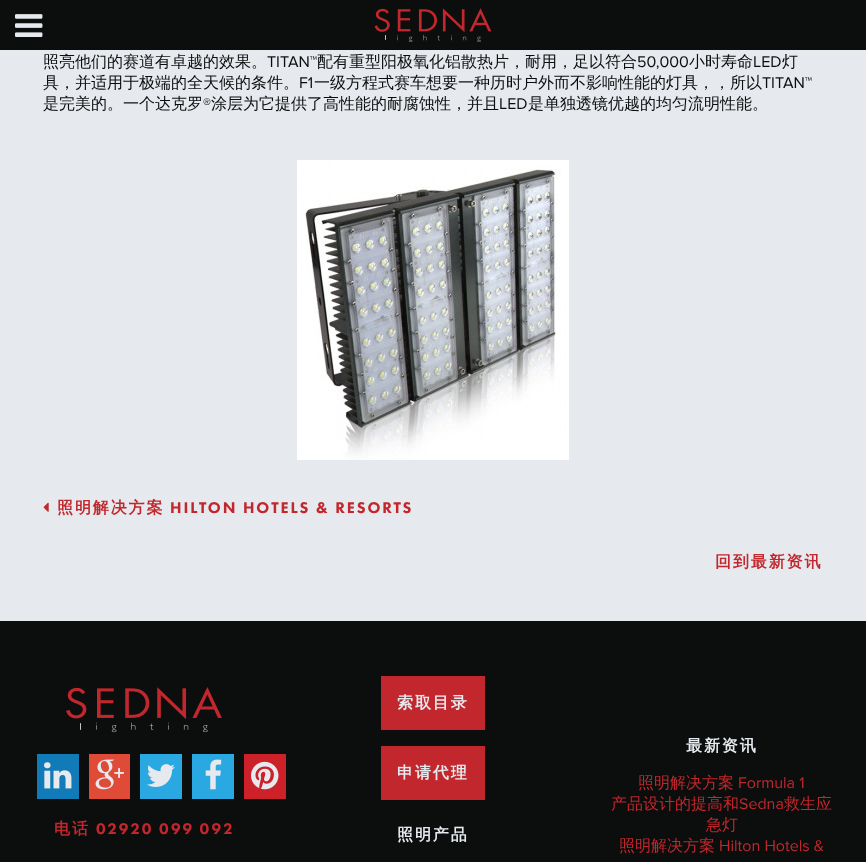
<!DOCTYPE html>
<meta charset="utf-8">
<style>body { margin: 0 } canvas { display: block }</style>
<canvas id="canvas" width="866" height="862"></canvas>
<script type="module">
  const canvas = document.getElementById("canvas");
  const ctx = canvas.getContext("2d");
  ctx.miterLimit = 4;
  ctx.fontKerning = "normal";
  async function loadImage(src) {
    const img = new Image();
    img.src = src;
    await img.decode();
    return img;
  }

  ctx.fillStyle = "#e6eaee";
  ctx.fillRect(0, 0, 866, 862);
  ctx.fillStyle = "#0c0d0d";
  ctx.fillRect(0, 0, 866, 50);
  ctx.drawImage(await loadImage("img1.png"), 15, 14, 28, 23);
  ctx.drawImage(await loadImage("img2.png"), 374, 8, 118, 34);
  ctx.font = "500 16px WenQuanYi Zen Hei";
  ctx.fillText("照亮他们的赛道有卓越的效果。", 43, 67);
  ctx.font = "16px Proxima Nova";
  ctx.fillText("TITAN™", 267, 67);
  ctx.font = "500 16px WenQuanYi Zen Hei";
  ctx.fillText("配有重型阳极氧化铝散热片，耐用，足以符合", 317, 67);
  ctx.font = "16px Proxima Nova";
  ctx.fillText("50,000", 637, 67);
  ctx.font = "500 16px WenQuanYi Zen Hei";
  ctx.fillText("小时寿命", 689, 67);
  ctx.font = "16px Proxima Nova";
  ctx.fillText("LED", 753, 67);
  ctx.font = "500 16px WenQuanYi Zen Hei";
  ctx.fillText("灯", 782, 67);
  ctx.fillText("具，并适用于极端的全天候的条件。", 43, 88);
  ctx.font = "16px Proxima Nova";
  ctx.fillText("F1", 299, 88);
  ctx.font = "500 16px WenQuanYi Zen Hei";
  ctx.fillText("一级方程式赛车想要一种历时户外而不影响性能的灯具，，所以", 314, 88);
  ctx.font = "16px Proxima Nova";
  ctx.fillText("TITAN™", 762, 88);
  ctx.font = "500 16px WenQuanYi Zen Hei";
  ctx.fillText("是完美的。一个达克罗", 43, 109);
  ctx.font = "16px Proxima Nova";
  ctx.fillText("®", 203, 109);
  ctx.font = "500 16px WenQuanYi Zen Hei";
  ctx.fillText("涂层为它提供了高性能的耐腐蚀性，并且", 211, 109);
  ctx.font = "16px Proxima Nova";
  ctx.fillText("LED", 499, 109);
  ctx.font = "500 16px WenQuanYi Zen Hei";
  ctx.fillText("是单独透镜优越的均匀流明性能。", 528, 109);
  ctx.drawImage(await loadImage("img3.png"), 297, 160, 272, 300);
  ctx.drawImage(await loadImage("img4.png"), 43, 502, 6, 10);
  ctx.letterSpacing = "1.9px";
  ctx.font = "bold 16px WenQuanYi Zen Hei";
  ctx.fillStyle = "#c1272c";
  ctx.fillText("照明解决方案", 57, 513);
  ctx.font = "900 16px Futura PT";
  ctx.fillText("HILTON HOTELS & RESORTS", 170, 513);
  ctx.font = "bold 16px WenQuanYi Zen Hei";
  ctx.fillText("回到最新资讯", 715, 567);
  ctx.fillStyle = "#0c0d0d";
  ctx.fillRect(0, 621, 866, 241);
  ctx.drawImage(await loadImage("img5.png"), 66, 687, 156, 46);
  ctx.fillStyle = "#117bb7";
  ctx.fillRect(37, 754, 42, 45);
  ctx.drawImage(await loadImage("img6.png"), 44, 762, 28, 27);
  ctx.fillStyle = "#e04b37";
  ctx.fillRect(89, 754, 41, 45);
  ctx.drawImage(await loadImage("img7.png"), 95, 759, 29, 31);
  ctx.fillStyle = "#2aa8e2";
  ctx.fillRect(140, 754, 42, 45);
  ctx.drawImage(await loadImage("img8.png"), 147, 764, 28, 23);
  ctx.fillRect(192, 754, 42, 45);
  ctx.drawImage(await loadImage("img9.png"), 205, 759, 17, 31);
  ctx.fillStyle = "#cc2129";
  ctx.fillRect(244, 754, 42, 45);
  ctx.drawImage(await loadImage("img10.png"), 251, 761, 28, 29);
  ctx.fillStyle = "#c1272c";
  ctx.fillText("电话", 54, 834);
  ctx.font = "900 16px Futura PT";
  ctx.fillText("02920 099 092", 96, 834);
  ctx.fillRect(381, 676, 104, 54);
  ctx.font = "bold 16px WenQuanYi Zen Hei";
  ctx.fillStyle = "#e6eaee";
  ctx.fillText("索取目录", 397, 708);
  ctx.fillStyle = "#c1272c";
  ctx.fillRect(381, 746, 104, 54);
  ctx.fillStyle = "#e6eaee";
  ctx.fillText("申请代理", 397, 778);
  ctx.fillText("照明产品", 397, 840);
  ctx.fillText("最新资讯", 686, 751);
  ctx.letterSpacing = "0px";
  ctx.font = "500 16px WenQuanYi Zen Hei";
  ctx.fillStyle = "#c1272c";
  ctx.fillText("照明解决方案", 638, 788);
  ctx.font = "16px Proxima Nova";
  ctx.fillText("Formula 1", 738, 788);
  ctx.font = "500 16px WenQuanYi Zen Hei";
  ctx.fillText("产品设计的提高和", 611, 809);
  ctx.font = "16px Proxima Nova";
  ctx.fillText("Sedna", 739, 809);
  ctx.font = "500 16px WenQuanYi Zen Hei";
  ctx.fillText("救生应", 784, 809);
  ctx.fillText("急灯", 706, 830);
  ctx.fillText("照明解决方案", 619, 851);
  ctx.font = "16px Proxima Nova";
  ctx.fillText("Hilton Hotels &", 719, 851);
</script>
